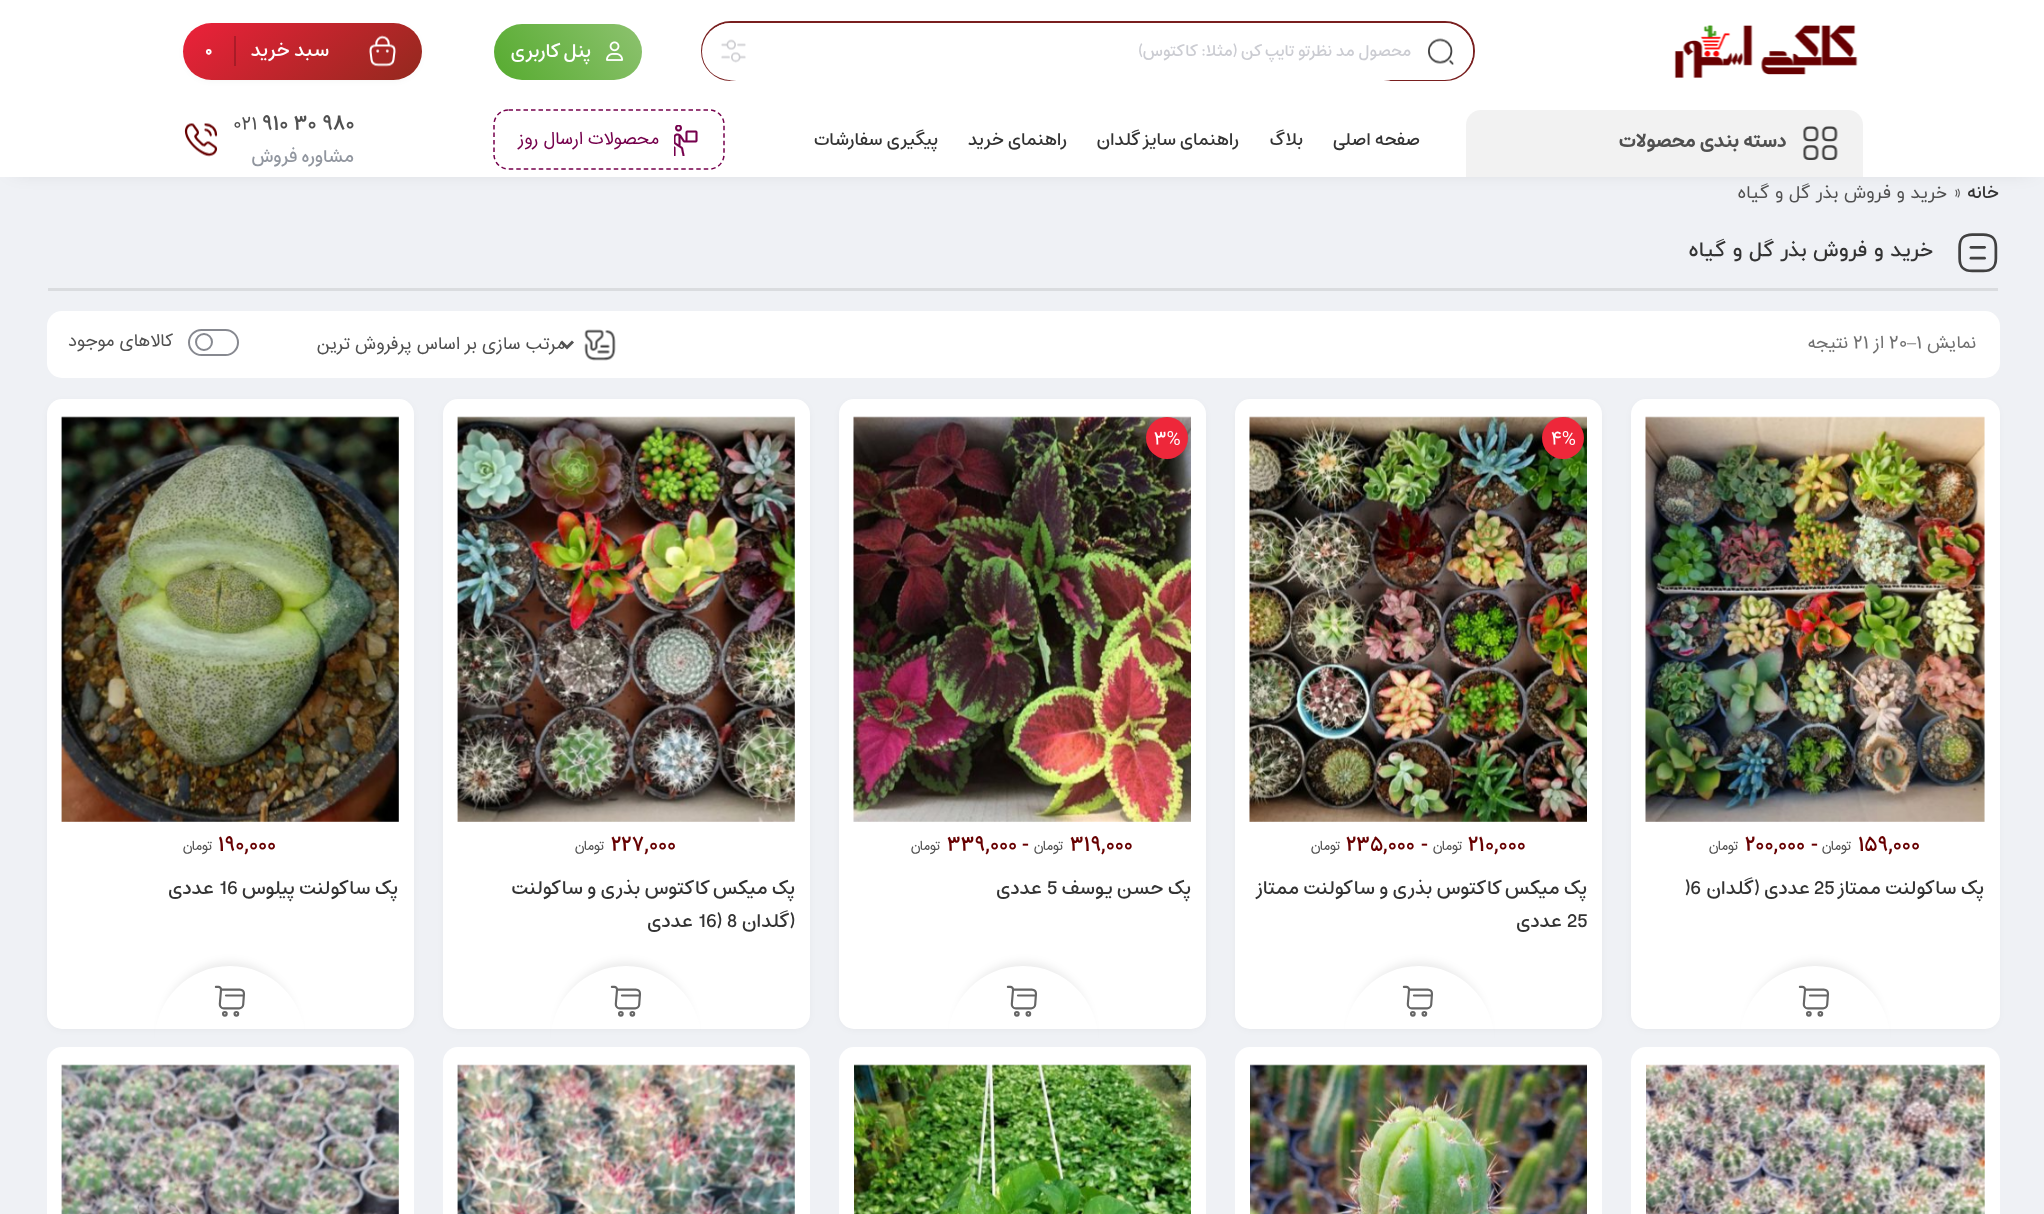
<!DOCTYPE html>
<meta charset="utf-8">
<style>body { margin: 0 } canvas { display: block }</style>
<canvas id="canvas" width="2044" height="1214"></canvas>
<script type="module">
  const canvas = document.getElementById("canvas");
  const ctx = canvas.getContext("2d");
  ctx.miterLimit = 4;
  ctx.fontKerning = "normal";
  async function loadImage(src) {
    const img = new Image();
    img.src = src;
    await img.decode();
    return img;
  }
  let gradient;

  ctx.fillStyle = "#eff1f5";
  ctx.fillRect(0, 0, 2044, 1214);
  ctx.fillStyle = "rgba(0, 0, 0, 0.2)";
  ctx.filter = "blur(10.5px)";
  ctx.beginPath();
  ctx.rect(14, 120, 2017, 47);
  ctx.fill();
  ctx.filter = "none";
  ctx.fillStyle = "#ffffff";
  ctx.fillRect(0, 0, 2044, 177);
  ctx.drawImage(await loadImage("img1.png"), 1674, 25, 184, 53);
  ctx.beginPath();
  ctx.roundRect(702, 22, 772, 58, 29);
  ctx.strokeStyle = "#791f1f";
  ctx.lineWidth = 2;
  ctx.stroke();
  ctx.beginPath();
  ctx.roundRect(702, 23, 771, 57, 28.5);
  ctx.fill();
  ctx.drawImage(await loadImage("img2.png"), 1428, 38, 26, 27);
  ctx.beginPath();
  ctx.roundRect(708, 24, 704, 57, 28.5);
  ctx.fill();
  ctx.direction = "rtl";
  ctx.font = "500 16.5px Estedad";
  ctx.fillStyle = "#cbccd2";
  ctx.fillText("محصول مد نظرتو تایپ کن (مثلا: کاکتوس)", 1411, 56);
  ctx.drawImage(await loadImage("img3.png"), 721, 39, 25, 24);
  gradient = ctx.createLinearGradient(505, 96, 631, 7.7);
  gradient.addColorStop(0, "#56ab2f");
  gradient.addColorStop(1, "#8dc26f");
  ctx.fillStyle = gradient;
  ctx.beginPath();
  ctx.roundRect(494, 24, 148, 56, 28);
  ctx.fill();
  ctx.drawImage(await loadImage("img4.png"), 606, 41, 18, 20);
  ctx.font = "500 19.5px Estedad";
  ctx.fillStyle = "#ffffff";
  ctx.fillText("پنل کاربری", 591, 57);
  ctx.fillStyle = "rgba(0, 0, 0, 0.1)";
  ctx.filter = "blur(5px)";
  ctx.beginPath();
  ctx.roundRect(188, 29, 229, 48, 24);
  ctx.fill();
  ctx.filter = "none";
  gradient = ctx.createLinearGradient(243, -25, 361, 127);
  gradient.addColorStop(0, "#ed213a");
  gradient.addColorStop(1, "#93291e");
  ctx.fillStyle = gradient;
  ctx.beginPath();
  ctx.roundRect(183, 23, 239, 57, 28.5);
  ctx.fill();
  gradient = ctx.createLinearGradient(243, -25, 361, 127);
  gradient.addColorStop(0, "#be1a2e");
  gradient.addColorStop(1, "#762118");
  ctx.fillStyle = gradient;
  ctx.fillRect(234, 36, 2, 30);
  ctx.drawImage(await loadImage("img5.png"), 369, 35, 27, 32);
  ctx.fillStyle = "#ffffff";
  ctx.fillText("سبد خرید", 329, 56);
  ctx.direction = "ltr";
  ctx.font = "bold 15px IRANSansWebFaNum";
  ctx.fillText("0", 205, 55);
  ctx.fillStyle = "#f2f2f2";
  ctx.beginPath();
  ctx.roundRect(1466, 110, 397, 67, [15, 15, 0, 0]);
  ctx.fill();
  ctx.drawImage(await loadImage("img6.png"), 1803, 126, 35, 34);
  ctx.direction = "rtl";
  ctx.font = "bold 19.5px Estedad";
  ctx.fillStyle = "#505050";
  ctx.fillText("دسته بندی محصولات", 1786, 147);
  ctx.font = "500 18px Estedad";
  ctx.fillStyle = "#333333";
  ctx.fillText("صفحه اصلی", 1420, 145);
  ctx.fillText("بلاگ", 1303, 145);
  ctx.fillText("راهنمای سایز گلدان", 1239, 145);
  ctx.fillText("راهنمای خرید", 1067, 145);
  ctx.fillText("پیگیری سفارشات", 938, 145);
  ctx.beginPath();
  ctx.moveTo(508.5, 110);
  ctx.lineTo(709.5, 110);
  ctx.bezierCurveTo(717.5, 110, 724, 116.5, 724, 124.5);
  ctx.lineTo(724, 154.5);
  ctx.bezierCurveTo(724, 162.5, 717.5, 169, 709.5, 169);
  ctx.lineTo(508.5, 169);
  ctx.bezierCurveTo(500.5, 169, 494, 162.5, 494, 154.5);
  ctx.lineTo(494, 124.5);
  ctx.bezierCurveTo(494, 116.5, 500.5, 110, 508.5, 110);
  ctx.closePath();
  ctx.strokeStyle = "#75004c";
  ctx.lineWidth = 1.5;
  ctx.setLineDash([4.5, 3]);
  ctx.stroke();
  ctx.drawImage(await loadImage("img7.png"), 674, 125, 24, 31);
  ctx.font = "18px IRANSansWebFaNum";
  ctx.fillStyle = "#75004c";
  ctx.fillText("محصولات ارسال روز", 659, 144);
  ctx.direction = "ltr";
  ctx.font = "500 19.5px IRANSansWebFaNum";
  ctx.fillStyle = "#505050";
  ctx.fillText("910 30 980", 262, 129);
  ctx.font = "18px IRANSansWebFaNum";
  ctx.fillText("021", 233, 129);
  ctx.direction = "rtl";
  ctx.font = "500 18px Estedad";
  ctx.fillStyle = "#91969f";
  ctx.fillText("مشاوره فروش", 354, 162);
  ctx.drawImage(await loadImage("img8.png"), 184, 123, 34, 34);
  ctx.fillStyle = "#333333";
  ctx.fillText("خانه", 1999, 198);
  ctx.direction = "ltr";
  ctx.font = "18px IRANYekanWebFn";
  ctx.fillStyle = "#505050";
  ctx.fillText("»", 1953, 198);
  ctx.direction = "rtl";
  ctx.fillText("خرید و فروش بذر گل و گیاه", 1947, 198);
  ctx.drawImage(await loadImage("img9.png"), 1958, 233, 40, 40);
  ctx.font = "500 21px IRANYekanWebFn";
  ctx.fillStyle = "#333333";
  ctx.fillText("خرید و فروش بذر گل و گیاه", 1933, 256);
  ctx.fillStyle = "#dadcdf";
  ctx.fillRect(48, 288, 1950, 3);
  ctx.fillStyle = "#ffffff";
  ctx.beginPath();
  ctx.roundRect(47, 311, 1953, 67, 15);
  ctx.fill();
  ctx.font = "18px IRANSansWebFaNum";
  ctx.fillStyle = "#707070";
  ctx.fillText("نمایش", 1976, 348);
  ctx.direction = "ltr";
  ctx.fillText("1", 1916, 348);
  ctx.font = "18px Liberation Serif";
  ctx.fillText("–", 1907, 348);
  ctx.font = "18px IRANSansWebFaNum";
  ctx.fillText("20", 1889, 348);
  ctx.direction = "rtl";
  ctx.fillText("از", 1884, 348);
  ctx.direction = "ltr";
  ctx.fillText("21", 1853, 348);
  ctx.direction = "rtl";
  ctx.fillText("نتیجه", 1848, 348);
  ctx.drawImage(await loadImage("img10.png"), 584, 329, 32, 32);
  ctx.beginPath();
  ctx.moveTo(561, 341.5);
  ctx.lineTo(567, 347.5);
  ctx.lineTo(573, 341.5);
  ctx.strokeStyle = "#555555";
  ctx.lineWidth = 3;
  ctx.setLineDash([]);
  ctx.stroke();
  ctx.fillStyle = "#505050";
  ctx.fillText("مرتب سازی بر اساس پرفروش ترین", 565, 349);
  ctx.beginPath();
  ctx.roundRect(189, 330, 49, 25, 12.5);
  ctx.strokeStyle = "#878990";
  ctx.lineWidth = 2;
  ctx.stroke();
  ctx.beginPath();
  ctx.arc(204, 342, 8, 0, Math.PI * 2);
  ctx.stroke();
  ctx.fillText("کالاهای موجود", 173, 346);
  ctx.fillStyle = "rgba(0, 0, 0, 0.1)";
  ctx.filter = "blur(5px)";
  ctx.beginPath();
  ctx.roundRect(1635, 405, 360, 621, 11);
  ctx.fill();
  ctx.filter = "none";
  ctx.fillStyle = "#ffffff";
  ctx.beginPath();
  ctx.roundRect(1631, 399, 369, 630, 15);
  ctx.fill();
  ctx.drawImage(await loadImage("img11.png"), 1645, 416, 340, 406);
  ctx.direction = "ltr";
  ctx.font = "500 19.5px IRANSansWebFaNum";
  ctx.fillStyle = "#670001";
  ctx.fillText("159,000", 1858, 850);
  ctx.direction = "rtl";
  ctx.font = "14px IRANSansWebFaNum";
  ctx.fillStyle = "#505050";
  ctx.fillText("تومان", 1852, 850);
  ctx.direction = "ltr";
  ctx.font = "500 19.5px IRANSansWebFaNum";
  ctx.fillStyle = "#670001";
  ctx.fillText("-", 1811, 850);
  ctx.fillText("200,000", 1745, 850);
  ctx.direction = "rtl";
  ctx.font = "14px IRANSansWebFaNum";
  ctx.fillStyle = "#505050";
  ctx.fillText("تومان", 1739, 850);
  ctx.font = "500 19.5px Estedad";
  ctx.fillStyle = "#333333";
  ctx.fillText("پک ساکولنت ممتاز", 1984, 894);
  ctx.direction = "ltr";
  ctx.fillText("25", 1814, 894);
  ctx.direction = "rtl";
  ctx.fillText("عددی (گلدان", 1810, 894);
  ctx.direction = "ltr";
  ctx.fillText(")6", 1685, 894);
  ctx.save();
  ctx.beginPath();
  ctx.moveTo(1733, 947);
  ctx.lineTo(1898, 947);
  ctx.lineTo(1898, 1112);
  ctx.lineTo(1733, 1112);
  ctx.closePath();
  ctx.moveTo(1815, 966);
  ctx.bezierCurveTo(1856.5, 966, 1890, 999.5, 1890, 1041);
  ctx.bezierCurveTo(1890, 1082.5, 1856.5, 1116, 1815, 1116);
  ctx.bezierCurveTo(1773.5, 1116, 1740, 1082.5, 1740, 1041);
  ctx.bezierCurveTo(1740, 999.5, 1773.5, 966, 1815, 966);
  ctx.closePath();
  ctx.clip("evenodd");
  ctx.fillStyle = "rgba(0, 0, 0, 0.08)";
  ctx.filter = "blur(4.5px)";
  ctx.beginPath();
  ctx.roundRect(1748, 962, 135, 135, 67.5);
  ctx.fill();
  ctx.filter = "none";
  ctx.restore();
  ctx.drawImage(await loadImage("img12.png"), 1798, 985, 31, 32);
  ctx.fillStyle = "rgba(0, 0, 0, 0.1)";
  ctx.filter = "blur(5px)";
  ctx.beginPath();
  ctx.roundRect(1239, 405, 359, 621, 11);
  ctx.fill();
  ctx.filter = "none";
  ctx.fillStyle = "#ffffff";
  ctx.beginPath();
  ctx.roundRect(1235, 399, 367, 630, 15);
  ctx.fill();
  ctx.drawImage(await loadImage("img13.png"), 1249, 416, 338, 406);
  ctx.fillStyle = "#ee273a";
  ctx.beginPath();
  ctx.arc(1563, 438, 21, 0, Math.PI * 2);
  ctx.fill();
  ctx.font = "18px IRANSansWebFaNum";
  ctx.fillStyle = "#ffffff";
  ctx.fillText("4%", 1551, 444);
  ctx.font = "500 19.5px IRANSansWebFaNum";
  ctx.fillStyle = "#670001";
  ctx.fillText("210,000", 1468, 850);
  ctx.direction = "rtl";
  ctx.font = "14px IRANSansWebFaNum";
  ctx.fillStyle = "#505050";
  ctx.fillText("تومان", 1463, 850);
  ctx.direction = "ltr";
  ctx.font = "500 19.5px IRANSansWebFaNum";
  ctx.fillStyle = "#670001";
  ctx.fillText("-", 1421, 850);
  ctx.fillText("235,000", 1346, 850);
  ctx.direction = "rtl";
  ctx.font = "14px IRANSansWebFaNum";
  ctx.fillStyle = "#505050";
  ctx.fillText("تومان", 1341, 850);
  ctx.font = "500 19.5px Estedad";
  ctx.fillStyle = "#333333";
  ctx.fillText("پک میکس کاکتوس بذری و ساکولنت ممتاز", 1587, 894);
  ctx.direction = "ltr";
  ctx.fillText("25", 1567, 927);
  ctx.direction = "rtl";
  ctx.fillText("عددی", 1562, 927);
  ctx.save();
  ctx.beginPath();
  ctx.moveTo(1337, 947);
  ctx.lineTo(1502, 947);
  ctx.lineTo(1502, 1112);
  ctx.lineTo(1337, 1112);
  ctx.closePath();
  ctx.moveTo(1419, 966);
  ctx.bezierCurveTo(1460.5, 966, 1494, 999.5, 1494, 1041);
  ctx.bezierCurveTo(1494, 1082.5, 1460.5, 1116, 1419, 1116);
  ctx.bezierCurveTo(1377.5, 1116, 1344, 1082.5, 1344, 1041);
  ctx.bezierCurveTo(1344, 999.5, 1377.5, 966, 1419, 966);
  ctx.closePath();
  ctx.clip("evenodd");
  ctx.fillStyle = "rgba(0, 0, 0, 0.08)";
  ctx.filter = "blur(4.5px)";
  ctx.beginPath();
  ctx.roundRect(1352, 962, 135, 135, 67.5);
  ctx.fill();
  ctx.filter = "none";
  ctx.restore();
  ctx.drawImage(await loadImage("img12.png"), 1402, 985, 31, 32);
  ctx.fillStyle = "rgba(0, 0, 0, 0.1)";
  ctx.filter = "blur(5px)";
  ctx.beginPath();
  ctx.roundRect(843, 405, 359, 621, 11);
  ctx.fill();
  ctx.filter = "none";
  ctx.fillStyle = "#ffffff";
  ctx.beginPath();
  ctx.roundRect(839, 399, 367, 630, 15);
  ctx.fill();
  ctx.drawImage(await loadImage("img14.png"), 853, 416, 338, 406);
  ctx.fillStyle = "#ee273a";
  ctx.beginPath();
  ctx.arc(1167, 438, 21, 0, Math.PI * 2);
  ctx.fill();
  ctx.direction = "ltr";
  ctx.font = "18px IRANSansWebFaNum";
  ctx.fillStyle = "#ffffff";
  ctx.fillText("3%", 1154, 444);
  ctx.font = "500 19.5px IRANSansWebFaNum";
  ctx.fillStyle = "#670001";
  ctx.fillText("319,000", 1070, 850);
  ctx.direction = "rtl";
  ctx.font = "14px IRANSansWebFaNum";
  ctx.fillStyle = "#505050";
  ctx.fillText("تومان", 1064, 850);
  ctx.direction = "ltr";
  ctx.font = "500 19.5px IRANSansWebFaNum";
  ctx.fillStyle = "#670001";
  ctx.fillText("-", 1022, 850);
  ctx.fillText("339,000", 947, 850);
  ctx.direction = "rtl";
  ctx.font = "14px IRANSansWebFaNum";
  ctx.fillStyle = "#505050";
  ctx.fillText("تومان", 941, 850);
  ctx.font = "500 19.5px Estedad";
  ctx.fillStyle = "#333333";
  ctx.fillText("پک حسن یوسف", 1191, 894);
  ctx.direction = "ltr";
  ctx.fillText("5", 1047, 894);
  ctx.direction = "rtl";
  ctx.fillText("عددی", 1042, 894);
  ctx.save();
  ctx.beginPath();
  ctx.moveTo(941, 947);
  ctx.lineTo(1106, 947);
  ctx.lineTo(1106, 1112);
  ctx.lineTo(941, 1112);
  ctx.closePath();
  ctx.moveTo(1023, 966);
  ctx.bezierCurveTo(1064.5, 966, 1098, 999.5, 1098, 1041);
  ctx.bezierCurveTo(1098, 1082.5, 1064.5, 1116, 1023, 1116);
  ctx.bezierCurveTo(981.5, 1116, 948, 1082.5, 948, 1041);
  ctx.bezierCurveTo(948, 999.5, 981.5, 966, 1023, 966);
  ctx.closePath();
  ctx.clip("evenodd");
  ctx.fillStyle = "rgba(0, 0, 0, 0.08)";
  ctx.filter = "blur(4.5px)";
  ctx.beginPath();
  ctx.roundRect(956, 962, 135, 135, 67.5);
  ctx.fill();
  ctx.filter = "none";
  ctx.restore();
  ctx.drawImage(await loadImage("img12.png"), 1006, 985, 31, 32);
  ctx.fillStyle = "rgba(0, 0, 0, 0.1)";
  ctx.filter = "blur(5px)";
  ctx.beginPath();
  ctx.roundRect(447, 405, 359, 621, 11);
  ctx.fill();
  ctx.filter = "none";
  ctx.fillStyle = "#ffffff";
  ctx.beginPath();
  ctx.roundRect(443, 399, 367, 630, 15);
  ctx.fill();
  ctx.drawImage(await loadImage("img15.png"), 457, 416, 338, 406);
  ctx.direction = "ltr";
  ctx.font = "500 19.5px IRANSansWebFaNum";
  ctx.fillStyle = "#670001";
  ctx.fillText("227,000", 611, 850);
  ctx.direction = "rtl";
  ctx.font = "14px IRANSansWebFaNum";
  ctx.fillStyle = "#505050";
  ctx.fillText("تومان", 605, 850);
  ctx.font = "500 19.5px Estedad";
  ctx.fillStyle = "#333333";
  ctx.fillText("پک میکس کاکتوس بذری و ساکولنت", 795, 894);
  ctx.fillText("(گلدان", 795, 927);
  ctx.direction = "ltr";
  ctx.fillText("16) 8", 698, 927);
  ctx.direction = "rtl";
  ctx.fillText("عددی", 693, 927);
  ctx.save();
  ctx.beginPath();
  ctx.moveTo(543, 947);
  ctx.lineTo(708, 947);
  ctx.lineTo(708, 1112);
  ctx.lineTo(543, 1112);
  ctx.closePath();
  ctx.moveTo(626, 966);
  ctx.bezierCurveTo(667.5, 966, 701, 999.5, 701, 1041);
  ctx.bezierCurveTo(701, 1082.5, 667.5, 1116, 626, 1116);
  ctx.bezierCurveTo(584.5, 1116, 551, 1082.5, 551, 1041);
  ctx.bezierCurveTo(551, 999.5, 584.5, 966, 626, 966);
  ctx.closePath();
  ctx.clip("evenodd");
  ctx.fillStyle = "rgba(0, 0, 0, 0.08)";
  ctx.filter = "blur(4.5px)";
  ctx.beginPath();
  ctx.roundRect(558, 962, 135, 135, 67.5);
  ctx.fill();
  ctx.filter = "none";
  ctx.restore();
  ctx.drawImage(await loadImage("img12.png"), 610, 985, 31, 32);
  ctx.fillStyle = "rgba(0, 0, 0, 0.1)";
  ctx.filter = "blur(5px)";
  ctx.beginPath();
  ctx.roundRect(51, 405, 359, 621, 11);
  ctx.fill();
  ctx.filter = "none";
  ctx.fillStyle = "#ffffff";
  ctx.beginPath();
  ctx.roundRect(47, 399, 367, 630, 15);
  ctx.fill();
  ctx.drawImage(await loadImage("img16.png"), 61, 416, 338, 406);
  ctx.direction = "ltr";
  ctx.font = "500 19.5px IRANSansWebFaNum";
  ctx.fillStyle = "#670001";
  ctx.fillText("190,000", 218, 850);
  ctx.direction = "rtl";
  ctx.font = "14px IRANSansWebFaNum";
  ctx.fillStyle = "#505050";
  ctx.fillText("تومان", 213, 850);
  ctx.font = "500 19.5px Estedad";
  ctx.fillStyle = "#333333";
  ctx.fillText("پک ساکولنت پیلوس", 398, 894);
  ctx.direction = "ltr";
  ctx.fillText("16", 219, 894);
  ctx.direction = "rtl";
  ctx.fillText("عددی", 214, 894);
  ctx.save();
  ctx.beginPath();
  ctx.moveTo(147, 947);
  ctx.lineTo(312, 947);
  ctx.lineTo(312, 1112);
  ctx.lineTo(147, 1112);
  ctx.closePath();
  ctx.moveTo(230, 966);
  ctx.bezierCurveTo(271.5, 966, 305, 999.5, 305, 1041);
  ctx.bezierCurveTo(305, 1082.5, 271.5, 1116, 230, 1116);
  ctx.bezierCurveTo(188.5, 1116, 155, 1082.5, 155, 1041);
  ctx.bezierCurveTo(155, 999.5, 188.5, 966, 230, 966);
  ctx.closePath();
  ctx.clip("evenodd");
  ctx.fillStyle = "rgba(0, 0, 0, 0.08)";
  ctx.filter = "blur(4.5px)";
  ctx.beginPath();
  ctx.roundRect(162, 962, 135, 135, 67.5);
  ctx.fill();
  ctx.filter = "none";
  ctx.restore();
  ctx.drawImage(await loadImage("img17.png"), 214, 985, 31, 32);
  ctx.fillStyle = "#ffffff";
  ctx.beginPath();
  ctx.roundRect(1631, 1047, 369, 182, 15);
  ctx.fill();
  ctx.drawImage(await loadImage("img18.png"), 1646, 1064, 339, 150);
  ctx.beginPath();
  ctx.roundRect(1235, 1047, 367, 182, 15);
  ctx.fill();
  ctx.drawImage(await loadImage("img19.png"), 1250, 1064, 337, 150);
  ctx.beginPath();
  ctx.roundRect(839, 1047, 367, 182, 15);
  ctx.fill();
  ctx.drawImage(await loadImage("img20.png"), 854, 1064, 337, 150);
  ctx.beginPath();
  ctx.roundRect(443, 1047, 367, 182, 15);
  ctx.fill();
  ctx.drawImage(await loadImage("img21.png"), 457, 1064, 338, 150);
  ctx.beginPath();
  ctx.roundRect(47, 1047, 367, 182, 15);
  ctx.fill();
  ctx.drawImage(await loadImage("img22.png"), 61, 1064, 338, 150);
</script>
